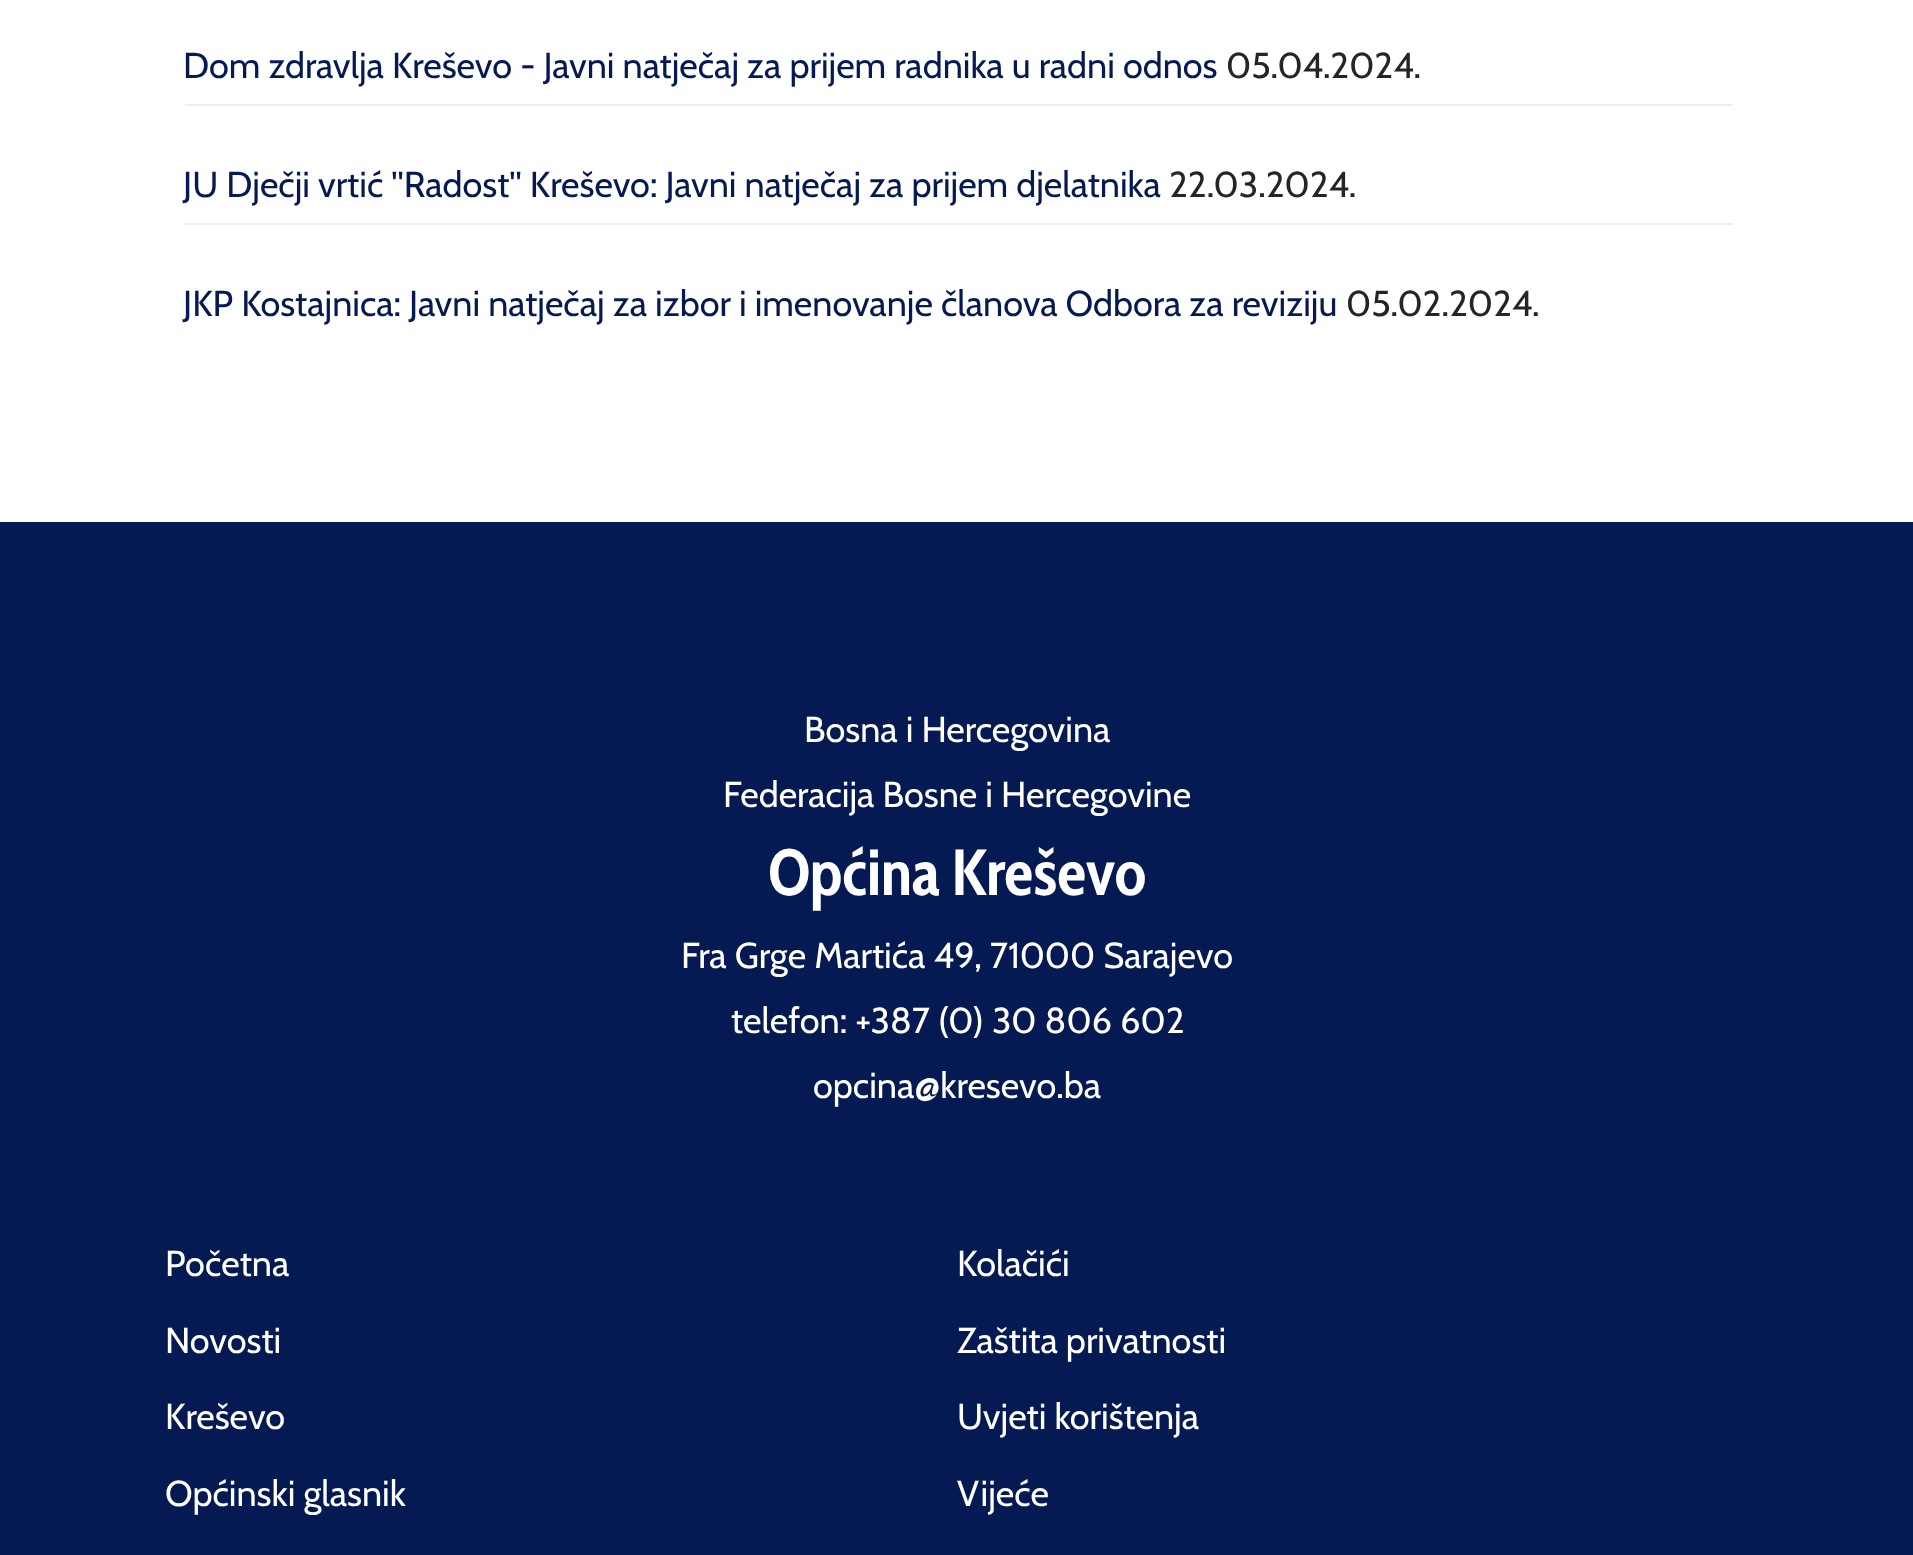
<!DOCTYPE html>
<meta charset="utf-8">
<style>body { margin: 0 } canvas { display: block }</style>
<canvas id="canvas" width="1913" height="1555"></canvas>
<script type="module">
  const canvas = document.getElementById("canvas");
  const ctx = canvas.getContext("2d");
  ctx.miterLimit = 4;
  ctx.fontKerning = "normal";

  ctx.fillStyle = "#ffffff";
  ctx.fillRect(0, 0, 1913, 1555);
  ctx.fillStyle = "#ecf0f1";
  ctx.fillRect(185, 104, 1548, 2);
  ctx.font = "36px Cabin";
  ctx.fillStyle = "#051a53";
  ctx.fillText("Dom zdravlja Kreševo - Javni natječaj za prijem radnika u radni odnos", 183, 78);
  ctx.fillStyle = "#22262a";
  ctx.fillText("05.04.2024.", 1226, 78);
  ctx.fillStyle = "#ecf0f1";
  ctx.fillRect(185, 223, 1548, 2);
  ctx.fillStyle = "#051a53";
  ctx.fillText("JU Dječji vrtić ''Radost'' Kreševo: Javni natječaj za prijem djelatnika", 183, 197);
  ctx.fillStyle = "#22262a";
  ctx.fillText("22.03.2024.", 1169, 197);
  ctx.fillStyle = "#051a53";
  ctx.fillText("JKP Kostajnica: Javni natječaj za izbor i imenovanje članova Odbora za reviziju", 183, 316);
  ctx.fillStyle = "#22262a";
  ctx.fillText("05.02.2024.", 1346, 316);
  ctx.fillStyle = "#051a53";
  ctx.fillRect(0, 522, 1913, 1033);
  ctx.fillStyle = "#ffffff";
  ctx.fillText("Bosna i Hercegovina", 804, 742);
  ctx.fillText("Federacija Bosne i Hercegovine", 723, 807);
  ctx.font = "bold 65px Cabin Condensed";
  ctx.fillText("Općina Kreševo", 768, 895);
  ctx.font = "36px Cabin";
  ctx.fillText("Fra Grge Martića 49, 71000 Sarajevo", 681, 968);
  ctx.fillText("telefon: +387 (0) 30 806 602", 731, 1033);
  ctx.fillText("opcina@kresevo.ba", 813, 1098);
  ctx.fillText("Početna", 165, 1276);
  ctx.fillText("Novosti", 165, 1353);
  ctx.fillText("Kreševo", 165, 1429);
  ctx.fillText("Općinski glasnik", 165, 1506);
  ctx.fillText("Kolačići", 957, 1276);
  ctx.fillText("Zaštita privatnosti", 957, 1353);
  ctx.fillText("Uvjeti korištenja", 957, 1429);
  ctx.fillText("Vijeće", 957, 1506);
</script>
